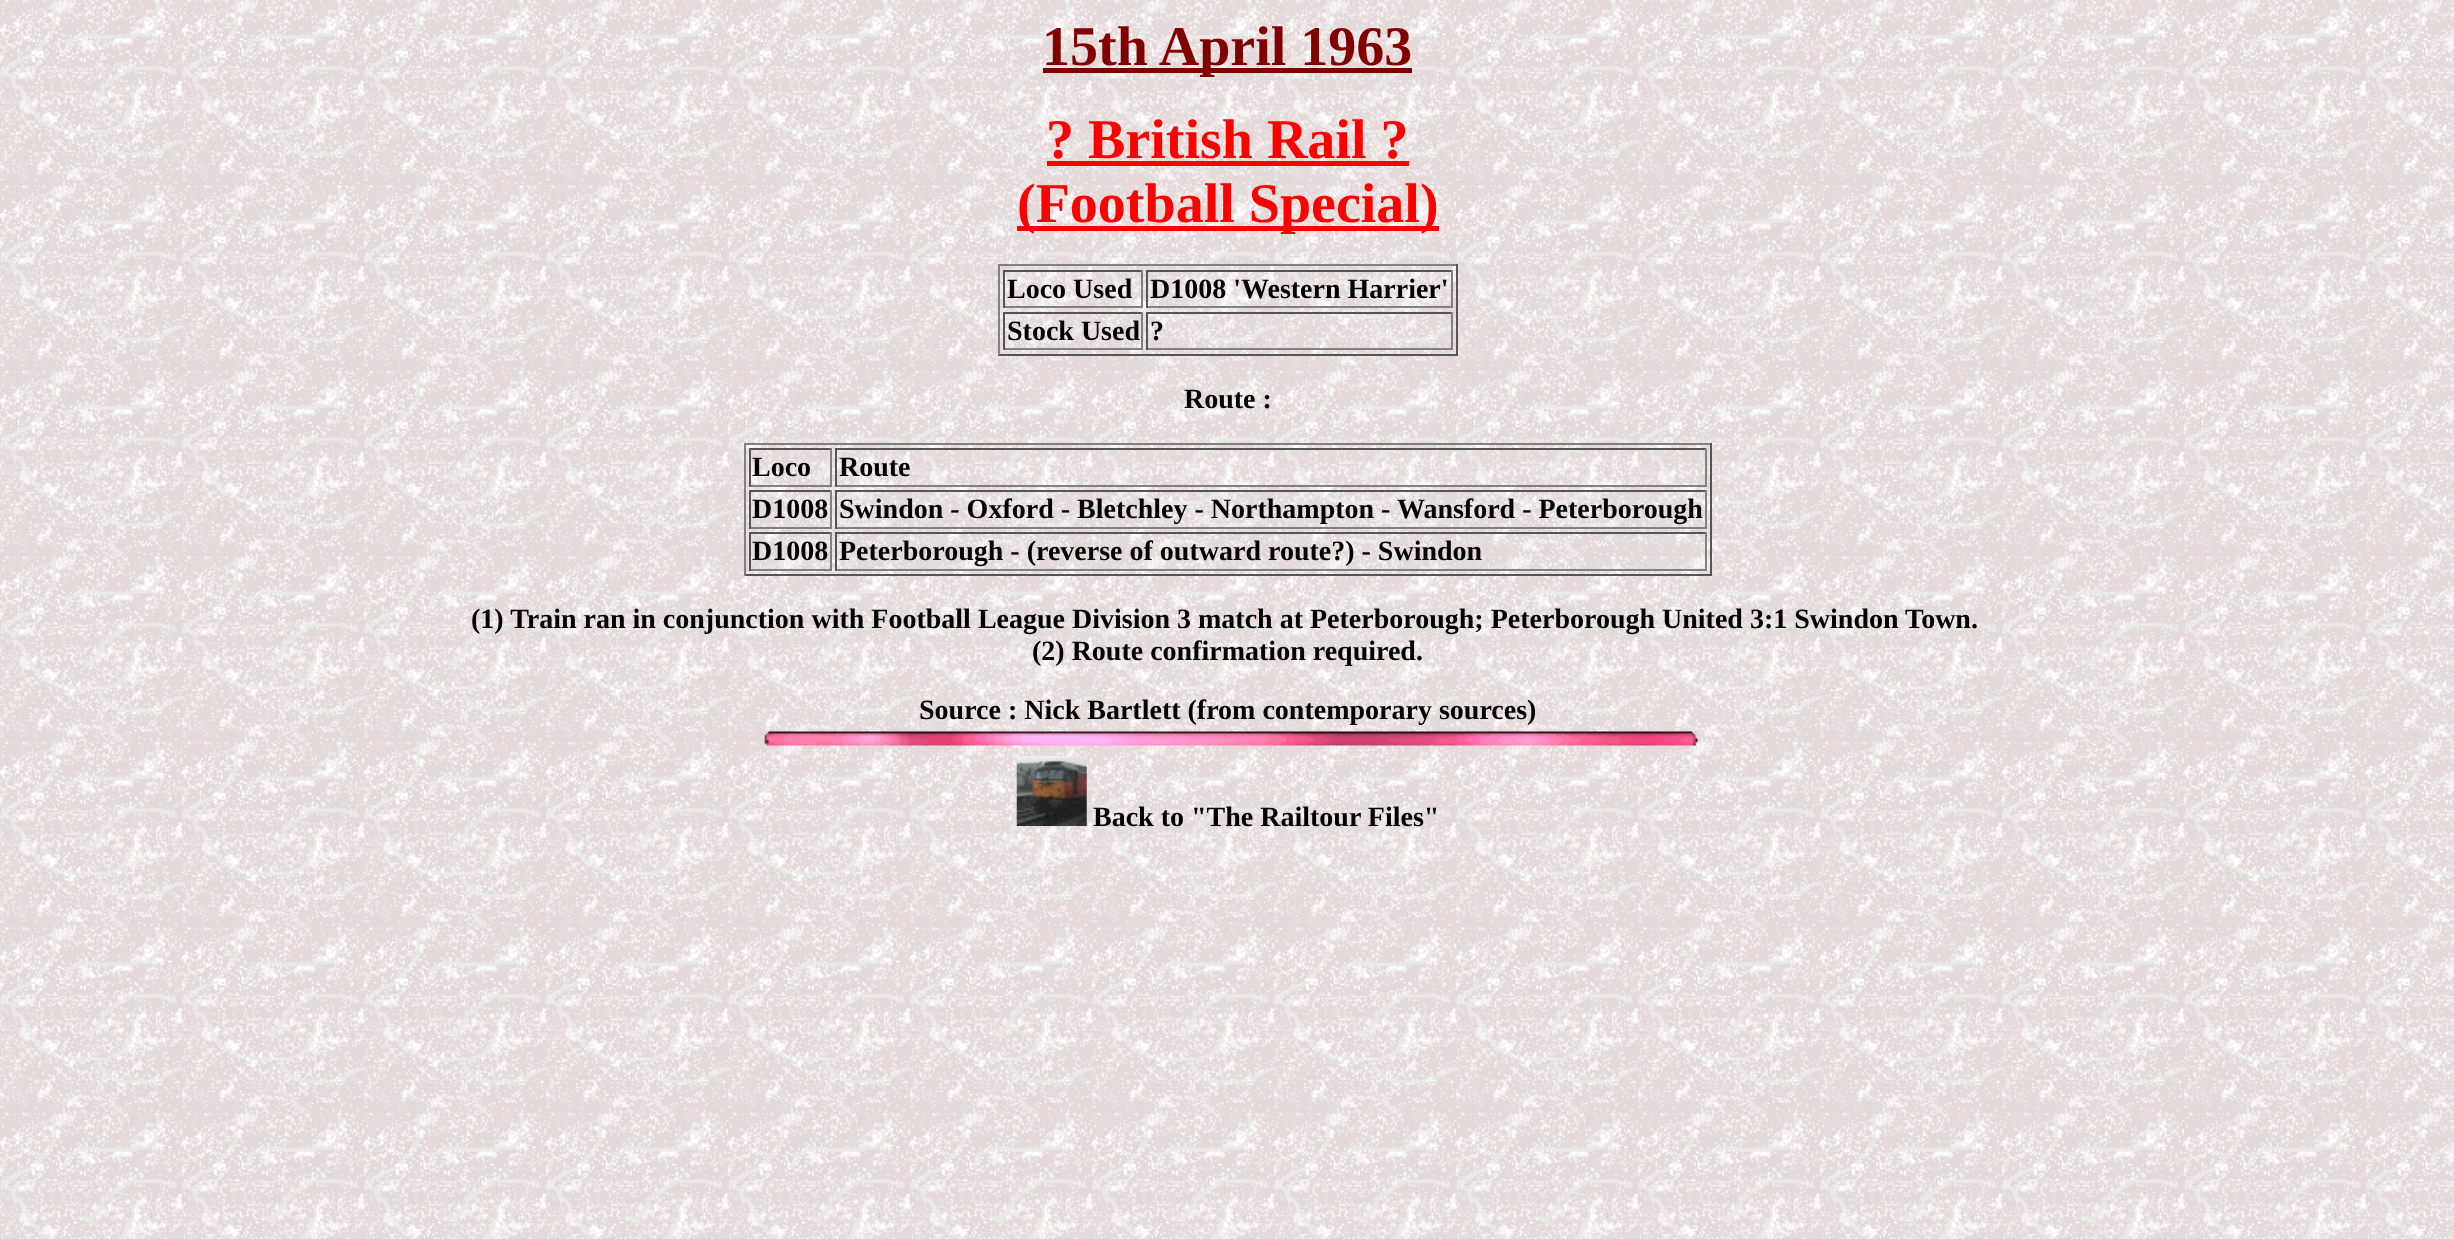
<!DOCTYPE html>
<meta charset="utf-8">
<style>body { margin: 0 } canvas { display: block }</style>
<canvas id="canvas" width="2454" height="1239"></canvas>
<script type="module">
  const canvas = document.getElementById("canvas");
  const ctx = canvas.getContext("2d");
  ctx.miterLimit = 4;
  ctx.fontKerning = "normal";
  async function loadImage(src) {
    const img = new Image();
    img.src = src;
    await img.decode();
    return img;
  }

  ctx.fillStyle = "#ffffff";
  ctx.fillRect(0, 0, 2454, 1239);
  ctx.drawImage(await loadImage("img1.png"), 0, 0, 2454, 1239);
  ctx.fillStyle = "#800000";
  ctx.fillRect(1043, 68, 369, 5);
  ctx.font = "bold 56px Liberation Serif";
  ctx.fillText("15th April 1963", 1042, 65);
  ctx.fillStyle = "#ff0000";
  ctx.fillText("? British Rail ?", 1046, 158);
  ctx.fillRect(1047, 161, 362, 5);
  ctx.fillRect(1017, 226, 422, 5);
  ctx.fillText("(Football Special)", 1017, 222);
  ctx.fillStyle = "#808080";
  ctx.fillRect(998, 264, 460, 2);
  ctx.fillStyle = "#555555";
  ctx.fillRect(1456, 264, 2, 91);
  ctx.fillRect(998, 354, 460, 2);
  ctx.fillStyle = "#808080";
  ctx.fillRect(998, 264, 2, 91);
  ctx.fillStyle = "#555555";
  ctx.fillRect(1003, 270, 140, 2);
  ctx.fillStyle = "#808080";
  ctx.fillRect(1141, 270, 2, 38);
  ctx.fillRect(1003, 306, 140, 2);
  ctx.fillStyle = "#555555";
  ctx.fillRect(1003, 270, 2, 38);
  ctx.font = "bold 28px Liberation Serif";
  ctx.fillStyle = "#000000";
  ctx.fillText("Loco Used", 1007, 298);
  ctx.fillStyle = "#555555";
  ctx.fillRect(1146, 270, 307, 2);
  ctx.fillStyle = "#808080";
  ctx.fillRect(1451, 270, 2, 38);
  ctx.fillRect(1146, 306, 307, 2);
  ctx.fillStyle = "#555555";
  ctx.fillRect(1146, 270, 2, 38);
  ctx.fillStyle = "#000000";
  ctx.fillText("D1008 'Western Harrier'", 1150, 298);
  ctx.fillStyle = "#555555";
  ctx.fillRect(1003, 312, 140, 2);
  ctx.fillStyle = "#808080";
  ctx.fillRect(1141, 312, 2, 38);
  ctx.fillRect(1003, 348, 140, 2);
  ctx.fillStyle = "#555555";
  ctx.fillRect(1003, 312, 2, 38);
  ctx.fillStyle = "#000000";
  ctx.fillText("Stock Used", 1007, 340);
  ctx.fillStyle = "#555555";
  ctx.fillRect(1146, 312, 307, 2);
  ctx.fillStyle = "#808080";
  ctx.fillRect(1451, 312, 2, 38);
  ctx.fillRect(1146, 348, 307, 2);
  ctx.fillStyle = "#555555";
  ctx.fillRect(1146, 312, 2, 38);
  ctx.fillStyle = "#000000";
  ctx.fillText("?", 1150, 340);
  ctx.fillText("Route :", 1184, 408);
  ctx.fillStyle = "#808080";
  ctx.fillRect(744, 443, 968, 2);
  ctx.fillStyle = "#555555";
  ctx.fillRect(1710, 443, 2, 133);
  ctx.fillRect(744, 574, 968, 2);
  ctx.fillStyle = "#808080";
  ctx.fillRect(744, 443, 2, 133);
  ctx.fillStyle = "#555555";
  ctx.fillRect(749, 448, 82, 2);
  ctx.fillStyle = "#808080";
  ctx.fillRect(830, 448, 2, 39);
  ctx.fillRect(749, 485, 82, 2);
  ctx.fillStyle = "#555555";
  ctx.fillRect(749, 448, 2, 39);
  ctx.fillStyle = "#000000";
  ctx.fillText("Loco", 752, 476);
  ctx.fillStyle = "#555555";
  ctx.fillRect(835, 448, 871, 2);
  ctx.fillStyle = "#808080";
  ctx.fillRect(1705, 448, 2, 39);
  ctx.fillRect(835, 485, 871, 2);
  ctx.fillStyle = "#555555";
  ctx.fillRect(835, 448, 2, 39);
  ctx.fillStyle = "#000000";
  ctx.fillText("Route", 839, 476);
  ctx.fillStyle = "#555555";
  ctx.fillRect(749, 490, 82, 2);
  ctx.fillStyle = "#808080";
  ctx.fillRect(830, 490, 2, 39);
  ctx.fillRect(749, 527, 82, 2);
  ctx.fillStyle = "#555555";
  ctx.fillRect(749, 490, 2, 39);
  ctx.fillStyle = "#000000";
  ctx.fillText("D1008", 752, 518);
  ctx.fillStyle = "#555555";
  ctx.fillRect(835, 490, 871, 2);
  ctx.fillStyle = "#808080";
  ctx.fillRect(1705, 490, 2, 39);
  ctx.fillRect(835, 527, 871, 2);
  ctx.fillStyle = "#555555";
  ctx.fillRect(835, 490, 2, 39);
  ctx.fillStyle = "#000000";
  ctx.fillText("Swindon - Oxford - Bletchley - Northampton - Wansford - Peterborough", 839, 518);
  ctx.fillStyle = "#555555";
  ctx.fillRect(749, 532, 82, 2);
  ctx.fillStyle = "#808080";
  ctx.fillRect(830, 532, 2, 39);
  ctx.fillRect(749, 569, 82, 2);
  ctx.fillStyle = "#555555";
  ctx.fillRect(749, 532, 2, 39);
  ctx.fillStyle = "#000000";
  ctx.fillText("D1008", 752, 560);
  ctx.fillStyle = "#555555";
  ctx.fillRect(835, 532, 871, 2);
  ctx.fillStyle = "#808080";
  ctx.fillRect(1705, 532, 2, 39);
  ctx.fillRect(835, 569, 871, 2);
  ctx.fillStyle = "#555555";
  ctx.fillRect(835, 532, 2, 39);
  ctx.fillStyle = "#000000";
  ctx.fillText("Peterborough - (reverse of outward route?) - Swindon", 839, 560);
  ctx.fillText("(1) Train ran in conjunction with Football League Division 3 match at Peterborough; Peterborough United 3:1 Swindon Town.", 471, 628);
  ctx.fillText("(2) Route confirmation required.", 1032, 660);
  ctx.fillText("Source : Nick Bartlett (from contemporary sources)", 919, 719);
  ctx.drawImage(await loadImage("img2.png"), 764, 731, 934, 15);
  ctx.drawImage(await loadImage("img3.png"), 1016, 756, 71, 70);
  ctx.fillText("Back to \"The Railtour Files\"", 1093, 826);
</script>
